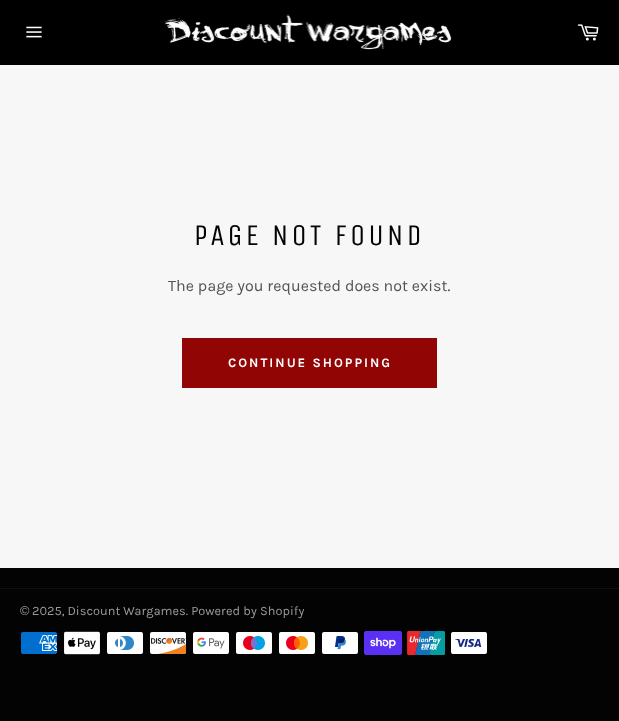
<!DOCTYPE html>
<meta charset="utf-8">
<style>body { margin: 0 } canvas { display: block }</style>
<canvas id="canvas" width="619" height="721"></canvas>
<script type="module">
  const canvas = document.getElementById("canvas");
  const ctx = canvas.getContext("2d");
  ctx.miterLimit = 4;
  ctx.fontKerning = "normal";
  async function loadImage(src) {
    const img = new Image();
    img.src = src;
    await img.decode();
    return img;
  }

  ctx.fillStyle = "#030303";
  ctx.fillRect(0, 0, 619, 721);
  ctx.fillStyle = "#f7f7f7";
  ctx.fillRect(0, 65, 619, 503);
  ctx.fillStyle = "#000000";
  ctx.fillRect(0, 0, 619, 65);
  ctx.drawImage(await loadImage("img1.png"), 26, 26, 16, 12);
  ctx.drawImage(await loadImage("img2.png"), 164, 14, 288, 36);
  ctx.drawImage(await loadImage("img3.png"), 577, 24, 22, 17);
  ctx.letterSpacing = "3px";
  ctx.font = "30px Unica One";
  ctx.fillStyle = "#030303";
  ctx.fillText("PAGE NOT FOUND", 194, 245);
  ctx.letterSpacing = "0px";
  ctx.font = "16px Karla";
  ctx.fillStyle = "#535353";
  ctx.fillText("The page you requested does not exist.", 168, 291);
  ctx.fillStyle = "#920505";
  ctx.fillRect(182, 338, 255, 50);
  ctx.letterSpacing = "2px";
  ctx.font = "bold 13px Karla";
  ctx.fillStyle = "#ffffff";
  ctx.fillText("CONTINUE SHOPPING", 228, 367);
  ctx.fillStyle = "#101010";
  ctx.fillRect(0, 588, 619, 1);
  ctx.letterSpacing = "0px";
  ctx.font = "12.8px Liberation Sans";
  ctx.fillStyle = "#9a9a9a";
  ctx.fillText("©", 20, 615);
  ctx.font = "12.8px Karla";
  ctx.fillText("2025, Discount Wargames. Powered by Shopify", 32, 615);
  ctx.drawImage(await loadImage("img4.png"), 21, 632, 36, 22);
  ctx.drawImage(await loadImage("img5.png"), 64, 631, 36, 24);
  ctx.drawImage(await loadImage("img6.png"), 107, 632, 36, 22);
  ctx.drawImage(await loadImage("img7.png"), 150, 632, 37, 22);
  ctx.drawImage(await loadImage("img8.png"), 193, 632, 36, 22);
  ctx.drawImage(await loadImage("img9.png"), 236, 632, 36, 22);
  ctx.drawImage(await loadImage("img10.png"), 279, 632, 36, 22);
  ctx.drawImage(await loadImage("img11.png"), 322, 632, 36, 22);
  ctx.drawImage(await loadImage("img12.png"), 364, 631, 38, 24);
  ctx.drawImage(await loadImage("img13.png"), 407, 631, 38, 24);
  ctx.drawImage(await loadImage("img14.png"), 451, 632, 36, 22);
</script>
